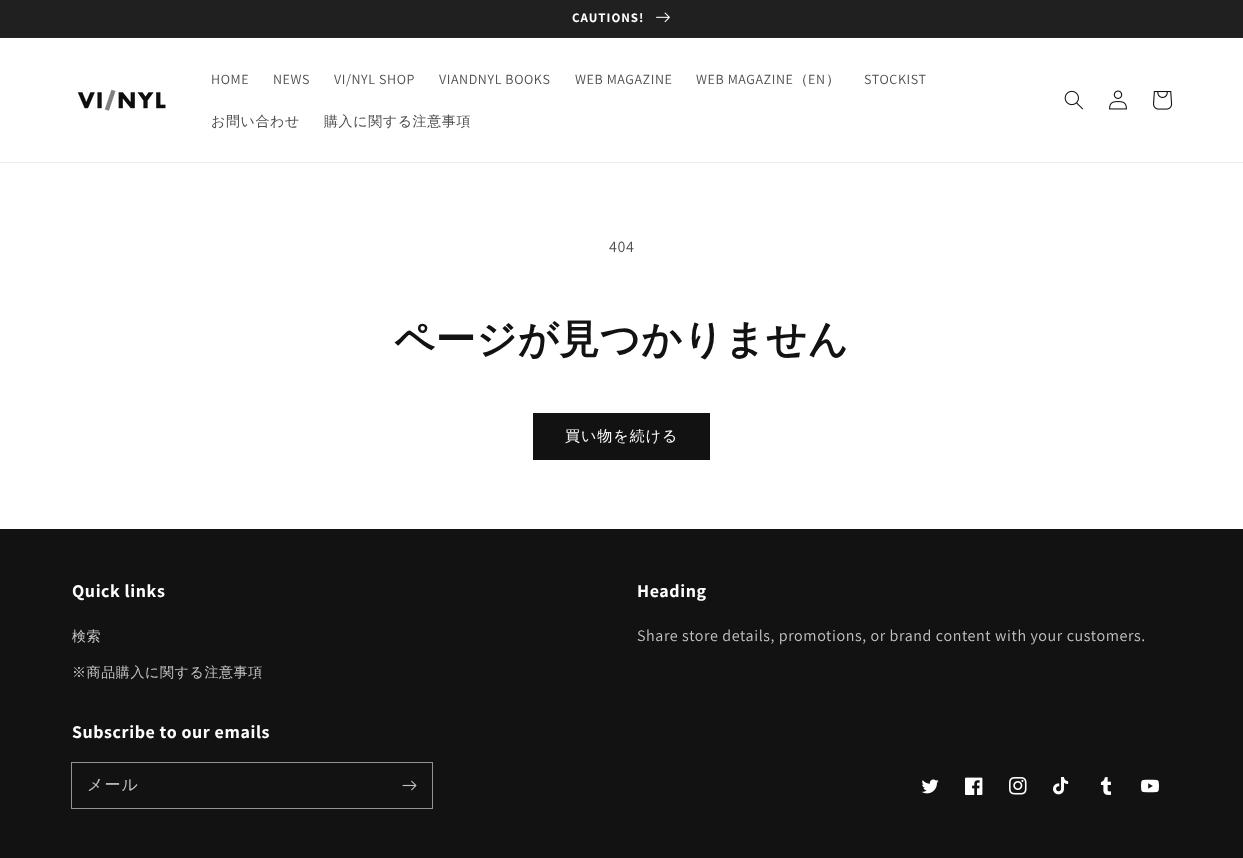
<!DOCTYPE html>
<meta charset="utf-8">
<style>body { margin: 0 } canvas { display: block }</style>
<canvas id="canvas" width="1243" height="858"></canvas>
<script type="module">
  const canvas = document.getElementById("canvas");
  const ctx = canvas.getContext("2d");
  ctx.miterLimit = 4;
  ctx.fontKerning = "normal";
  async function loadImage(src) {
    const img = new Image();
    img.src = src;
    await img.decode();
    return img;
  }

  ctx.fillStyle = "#ffffff";
  ctx.fillRect(0, 0, 1243, 858);
  ctx.fillStyle = "#252525";
  ctx.fillRect(0, 37, 1243, 1);
  ctx.fillStyle = "#202020";
  ctx.fillRect(0, 0, 1243, 37);
  ctx.letterSpacing = "1px";
  ctx.font = "bold 13px Assistant";
  ctx.fillStyle = "#ffffff";
  ctx.fillText("CAUTIONS!", 572, 22);
  ctx.drawImage(await loadImage("img1.png"), 656, 12, 14, 11);
  ctx.fillStyle = "#ececec";
  ctx.fillRect(0, 162, 1243, 1);
  ctx.drawImage(await loadImage("img2.png"), 77, 89, 89, 22);
  ctx.letterSpacing = "0.6px";
  ctx.font = "14px Assistant";
  ctx.fillStyle = "#4d4d4d";
  ctx.fillText("HOME", 211, 84);
  ctx.fillText("NEWS", 273, 84);
  ctx.fillText("VI/NYL SHOP", 334, 84);
  ctx.fillText("VIANDNYL BOOKS", 439, 84);
  ctx.fillText("WEB MAGAZINE", 575, 84);
  ctx.fillText("WEB MAGAZINE", 696, 84);
  ctx.font = "500 14px WenQuanYi Zen Hei";
  ctx.fillText("（", 794, 84);
  ctx.font = "14px Assistant";
  ctx.fillText("EN", 808, 84);
  ctx.font = "500 14px WenQuanYi Zen Hei";
  ctx.fillText("）", 826, 84);
  ctx.font = "14px Assistant";
  ctx.fillText("STOCKIST", 864, 84);
  ctx.font = "500 14px WenQuanYi Zen Hei";
  ctx.fillText("お問い合わせ", 211, 126);
  ctx.fillText("購入に関する注意事項", 324, 126);
  ctx.drawImage(await loadImage("img3.png"), 1064, 90, 19, 20);
  ctx.drawImage(await loadImage("img4.png"), 1109, 90, 18, 20);
  ctx.drawImage(await loadImage("img5.png"), 1153, 91, 20, 19);
  ctx.font = "16px Assistant";
  ctx.fillText("404", 609, 252);
  ctx.font = "bold 40px WenQuanYi Zen Hei";
  ctx.fillStyle = "#121212";
  ctx.fillText("ページが見つかりません", 394, 353);
  ctx.strokeStyle = "#121212";
  ctx.strokeRect(533.5, 413.5, 176, 46);
  ctx.fillRect(534, 414, 175, 45);
  ctx.letterSpacing = "1px";
  ctx.font = "500 15px WenQuanYi Zen Hei";
  ctx.fillStyle = "#ffffff";
  ctx.fillText("買い物を続ける", 565, 441);
  ctx.fillStyle = "#121212";
  ctx.fillRect(0, 529, 1243, 329);
  ctx.letterSpacing = "0.6px";
  ctx.font = "bold 18px Assistant";
  ctx.fillStyle = "#ffffff";
  ctx.fillText("Quick links", 72, 597);
  ctx.font = "500 14px WenQuanYi Zen Hei";
  ctx.fillStyle = "#c4c4c4";
  ctx.fillText("検索", 72, 641);
  ctx.fillText("※商品購入に関する注意事項", 72, 677);
  ctx.font = "bold 18px Assistant";
  ctx.fillStyle = "#ffffff";
  ctx.fillText("Heading", 637, 597);
  ctx.font = "16px Assistant";
  ctx.fillStyle = "#c4c4c4";
  ctx.fillText("Share store details, promotions, or brand content with your customers.", 637, 641);
  ctx.font = "bold 18px Assistant";
  ctx.fillStyle = "#ffffff";
  ctx.fillText("Subscribe to our emails", 72, 738);
  ctx.strokeStyle = "#949494";
  ctx.strokeRect(71.5, 762.5, 361, 46);
  ctx.letterSpacing = "1px";
  ctx.font = "500 16px WenQuanYi Zen Hei";
  ctx.fillStyle = "#c4c4c4";
  ctx.fillText("メール", 87, 790);
  ctx.drawImage(await loadImage("img6.png"), 402, 780, 15, 11);
  ctx.drawImage(await loadImage("img7.png"), 921, 779, 18, 15);
  ctx.drawImage(await loadImage("img8.png"), 965, 777, 18, 18);
  ctx.drawImage(await loadImage("img9.png"), 1009, 777, 18, 18);
  ctx.drawImage(await loadImage("img10.png"), 1053, 777, 16, 18);
  ctx.drawImage(await loadImage("img11.png"), 1100, 777, 12, 18);
  ctx.drawImage(await loadImage("img12.png"), 1141, 779, 18, 14);
</script>
